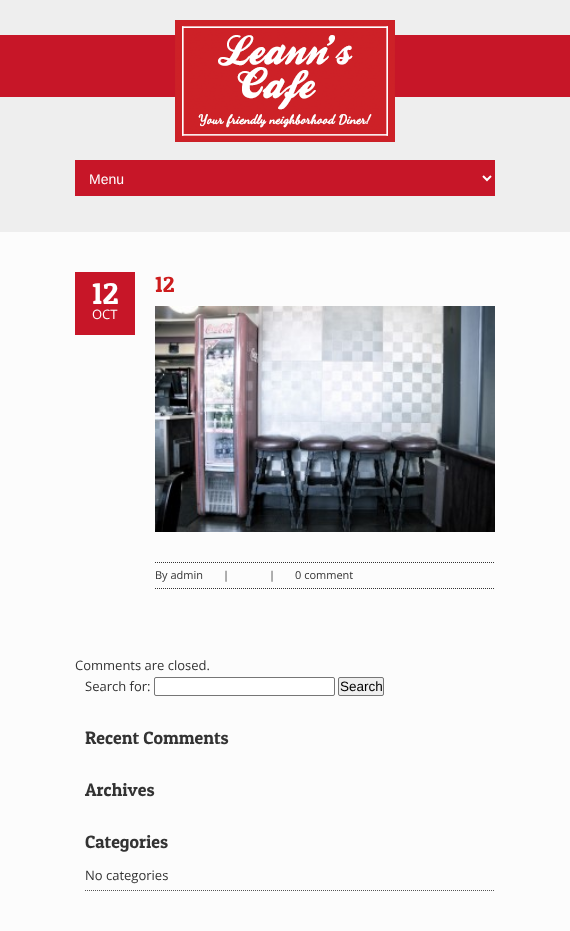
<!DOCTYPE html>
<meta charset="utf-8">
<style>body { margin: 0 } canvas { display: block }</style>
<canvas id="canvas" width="570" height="931"></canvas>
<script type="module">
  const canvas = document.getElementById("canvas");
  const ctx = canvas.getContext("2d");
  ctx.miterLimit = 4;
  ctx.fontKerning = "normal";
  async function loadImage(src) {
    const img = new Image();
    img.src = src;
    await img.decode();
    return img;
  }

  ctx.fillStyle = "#eeeeee";
  ctx.fillRect(0, 0, 570, 931);
  ctx.fillStyle = "#c71628";
  ctx.fillRect(0, 35, 570, 62);
  ctx.drawImage(await loadImage("img1.png"), 175, 20, 220, 122);
  ctx.fillRect(75, 160, 420, 36);
  ctx.beginPath();
  ctx.moveTo(483, 176);
  ctx.lineTo(487, 180);
  ctx.lineTo(491, 176);
  ctx.strokeStyle = "#ffffff";
  ctx.lineWidth = 2;
  ctx.stroke();
  ctx.font = "14px Liberation Sans";
  ctx.fillStyle = "#ffffff";
  ctx.fillText("Menu", 89, 184);
  ctx.fillStyle = "#fcfcfc";
  ctx.fillRect(0, 232, 570, 699);
  ctx.fillStyle = "#c71628";
  ctx.fillRect(75, 272, 60, 63);
  ctx.font = "30px Patua One";
  ctx.fillStyle = "#ffffff";
  ctx.fillText("12", 92, 304);
  ctx.font = "13px Open Sans";
  ctx.fillText("OCT", 92, 319);
  ctx.font = "22px Patua One";
  ctx.fillStyle = "#cd1c1d";
  ctx.fillText("12", 155, 292);
  ctx.drawImage(await loadImage("img2.png"), 155, 306, 340, 226);
  ctx.beginPath();
  ctx.moveTo(155, 562.5);
  ctx.lineTo(495, 562.5);
  ctx.strokeStyle = "#333333";
  ctx.lineWidth = 1;
  ctx.setLineDash([1, 1]);
  ctx.stroke();
  ctx.beginPath();
  ctx.moveTo(155, 588.5);
  ctx.lineTo(495, 588.5);
  ctx.stroke();
  ctx.font = "11px Open Sans";
  ctx.fillStyle = "#333333";
  ctx.fillText("By admin", 155, 579);
  ctx.fillText("|", 223, 579);
  ctx.fillText("|", 269, 579);
  ctx.fillText("0 comment", 295, 579);
  ctx.font = "13px Open Sans";
  ctx.fillText("Comments are closed.", 75, 670);
  ctx.fillText("Search for:", 85, 691);
  ctx.fillStyle = "#ffffff";
  ctx.beginPath();
  ctx.roundRect(154.5, 677.5, 180, 18, 1.5);
  ctx.fill();
  ctx.strokeStyle = "#767676";
  ctx.setLineDash([]);
  ctx.stroke();
  ctx.fillStyle = "#efefef";
  ctx.beginPath();
  ctx.roundRect(338.5, 677.5, 45, 18, 1.5);
  ctx.fill();
  ctx.stroke();
  ctx.font = "13.5px Liberation Sans";
  ctx.fillStyle = "#000000";
  ctx.fillText("Search", 340, 691);
  ctx.font = "18px Patua One";
  ctx.fillStyle = "#333333";
  ctx.fillText("Recent Comments", 85, 744);
  ctx.fillText("Archives", 85, 796);
  ctx.fillText("Categories", 85, 848);
  ctx.beginPath();
  ctx.moveTo(85, 890.5);
  ctx.lineTo(495, 890.5);
  ctx.strokeStyle = "#555555";
  ctx.setLineDash([1, 1]);
  ctx.stroke();
  ctx.font = "13px Open Sans";
  ctx.fillText("No categories", 85, 880);
</script>
